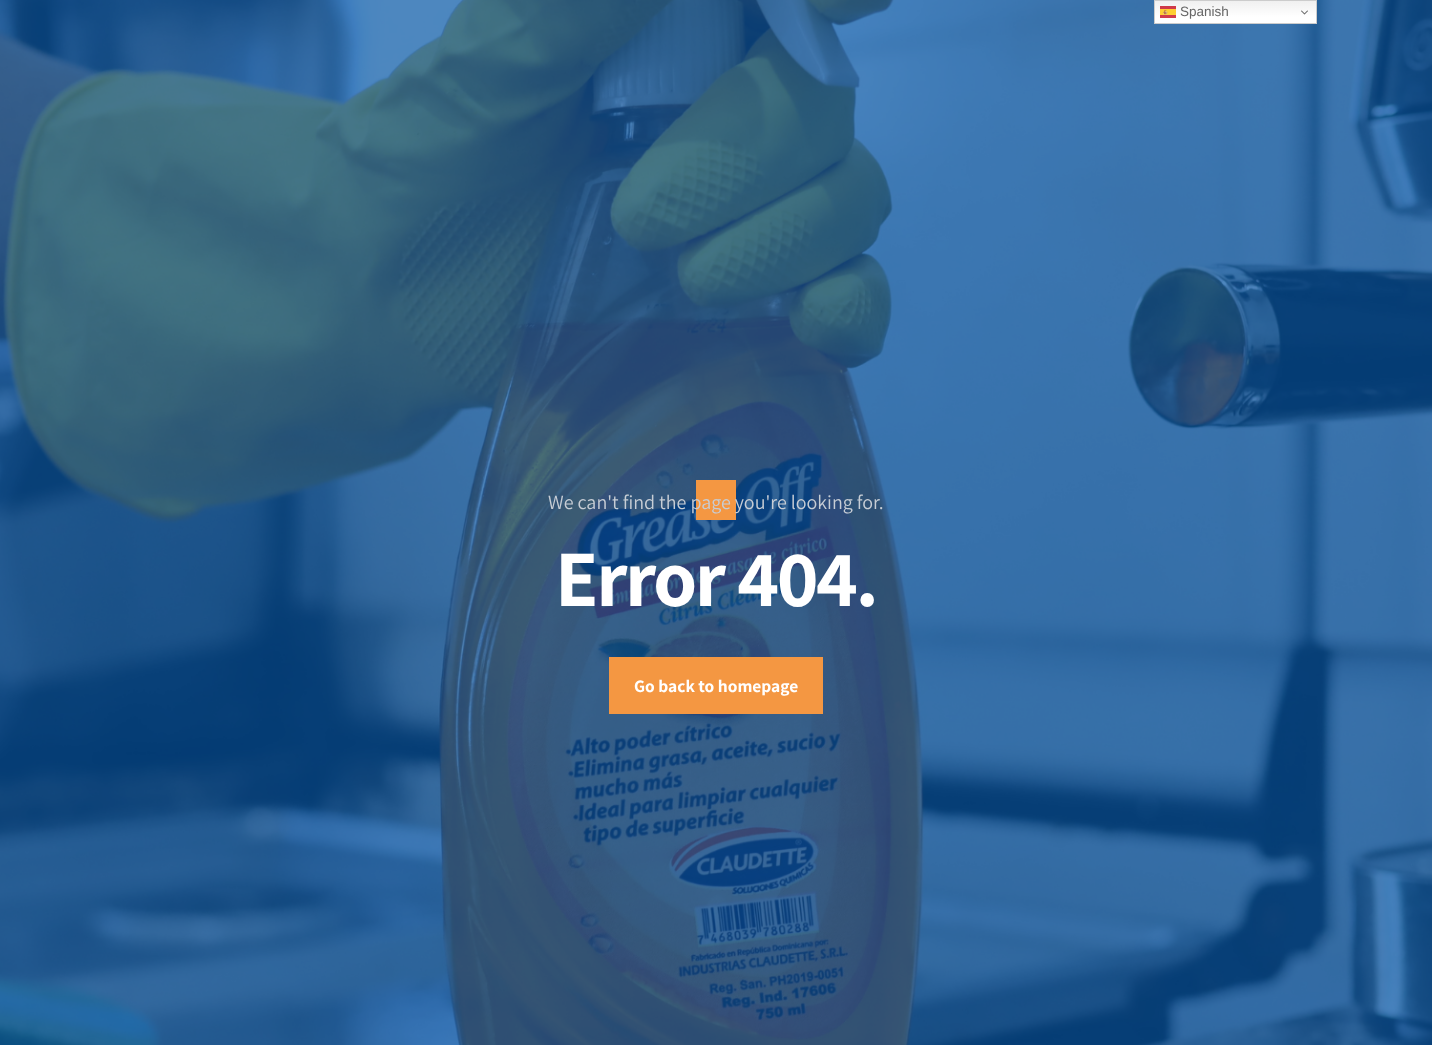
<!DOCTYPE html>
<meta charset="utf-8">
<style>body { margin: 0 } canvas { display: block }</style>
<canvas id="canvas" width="1432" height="1045"></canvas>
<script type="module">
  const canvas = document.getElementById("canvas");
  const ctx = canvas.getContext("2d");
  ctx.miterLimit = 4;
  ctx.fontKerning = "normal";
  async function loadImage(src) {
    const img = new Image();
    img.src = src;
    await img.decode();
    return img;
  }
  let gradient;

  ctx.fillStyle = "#ffffff";
  ctx.fillRect(0, 0, 1432, 1045);
  ctx.drawImage(await loadImage("img3.png"), 0, 0, 1432, 1045);
  gradient = ctx.createLinearGradient(1236, 0, 1236, 24);
  gradient.addColorStop(0, "#efefef");
  gradient.addColorStop(0.7, "#ffffff");
  ctx.fillStyle = gradient;
  ctx.fillRect(1155, 1, 161, 22);
  ctx.strokeStyle = "#cccccc";
  ctx.strokeRect(1154.5, 0.5, 162, 23);
  ctx.drawImage(await loadImage("img1.png"), 1160, 6, 16, 12);
  ctx.font = "13.5px Liberation Sans";
  ctx.fillStyle = "#666666";
  ctx.fillText("Spanish", 1180, 16);
  ctx.drawImage(await loadImage("img2.png"), 1301, 10, 7, 5);
  ctx.fillStyle = "#f49742";
  ctx.fillRect(696, 480, 40, 40);
  ctx.font = "20px Assistant";
  ctx.fillStyle = "#c7cdd5";
  ctx.fillText("We can't find the page you're looking for.", 548, 509);
  ctx.letterSpacing = "-2.4px";
  ctx.font = "bold 80px Assistant";
  ctx.fillStyle = "#ffffff";
  ctx.fillText("Error 404.", 555, 606);
  ctx.fillStyle = "#f49742";
  ctx.fillRect(609, 657, 214, 57);
  ctx.letterSpacing = "0px";
  ctx.font = "bold 17.5px Assistant";
  ctx.fillStyle = "#ffffff";
  ctx.fillText("Go back to homepage", 634, 692);
</script>
